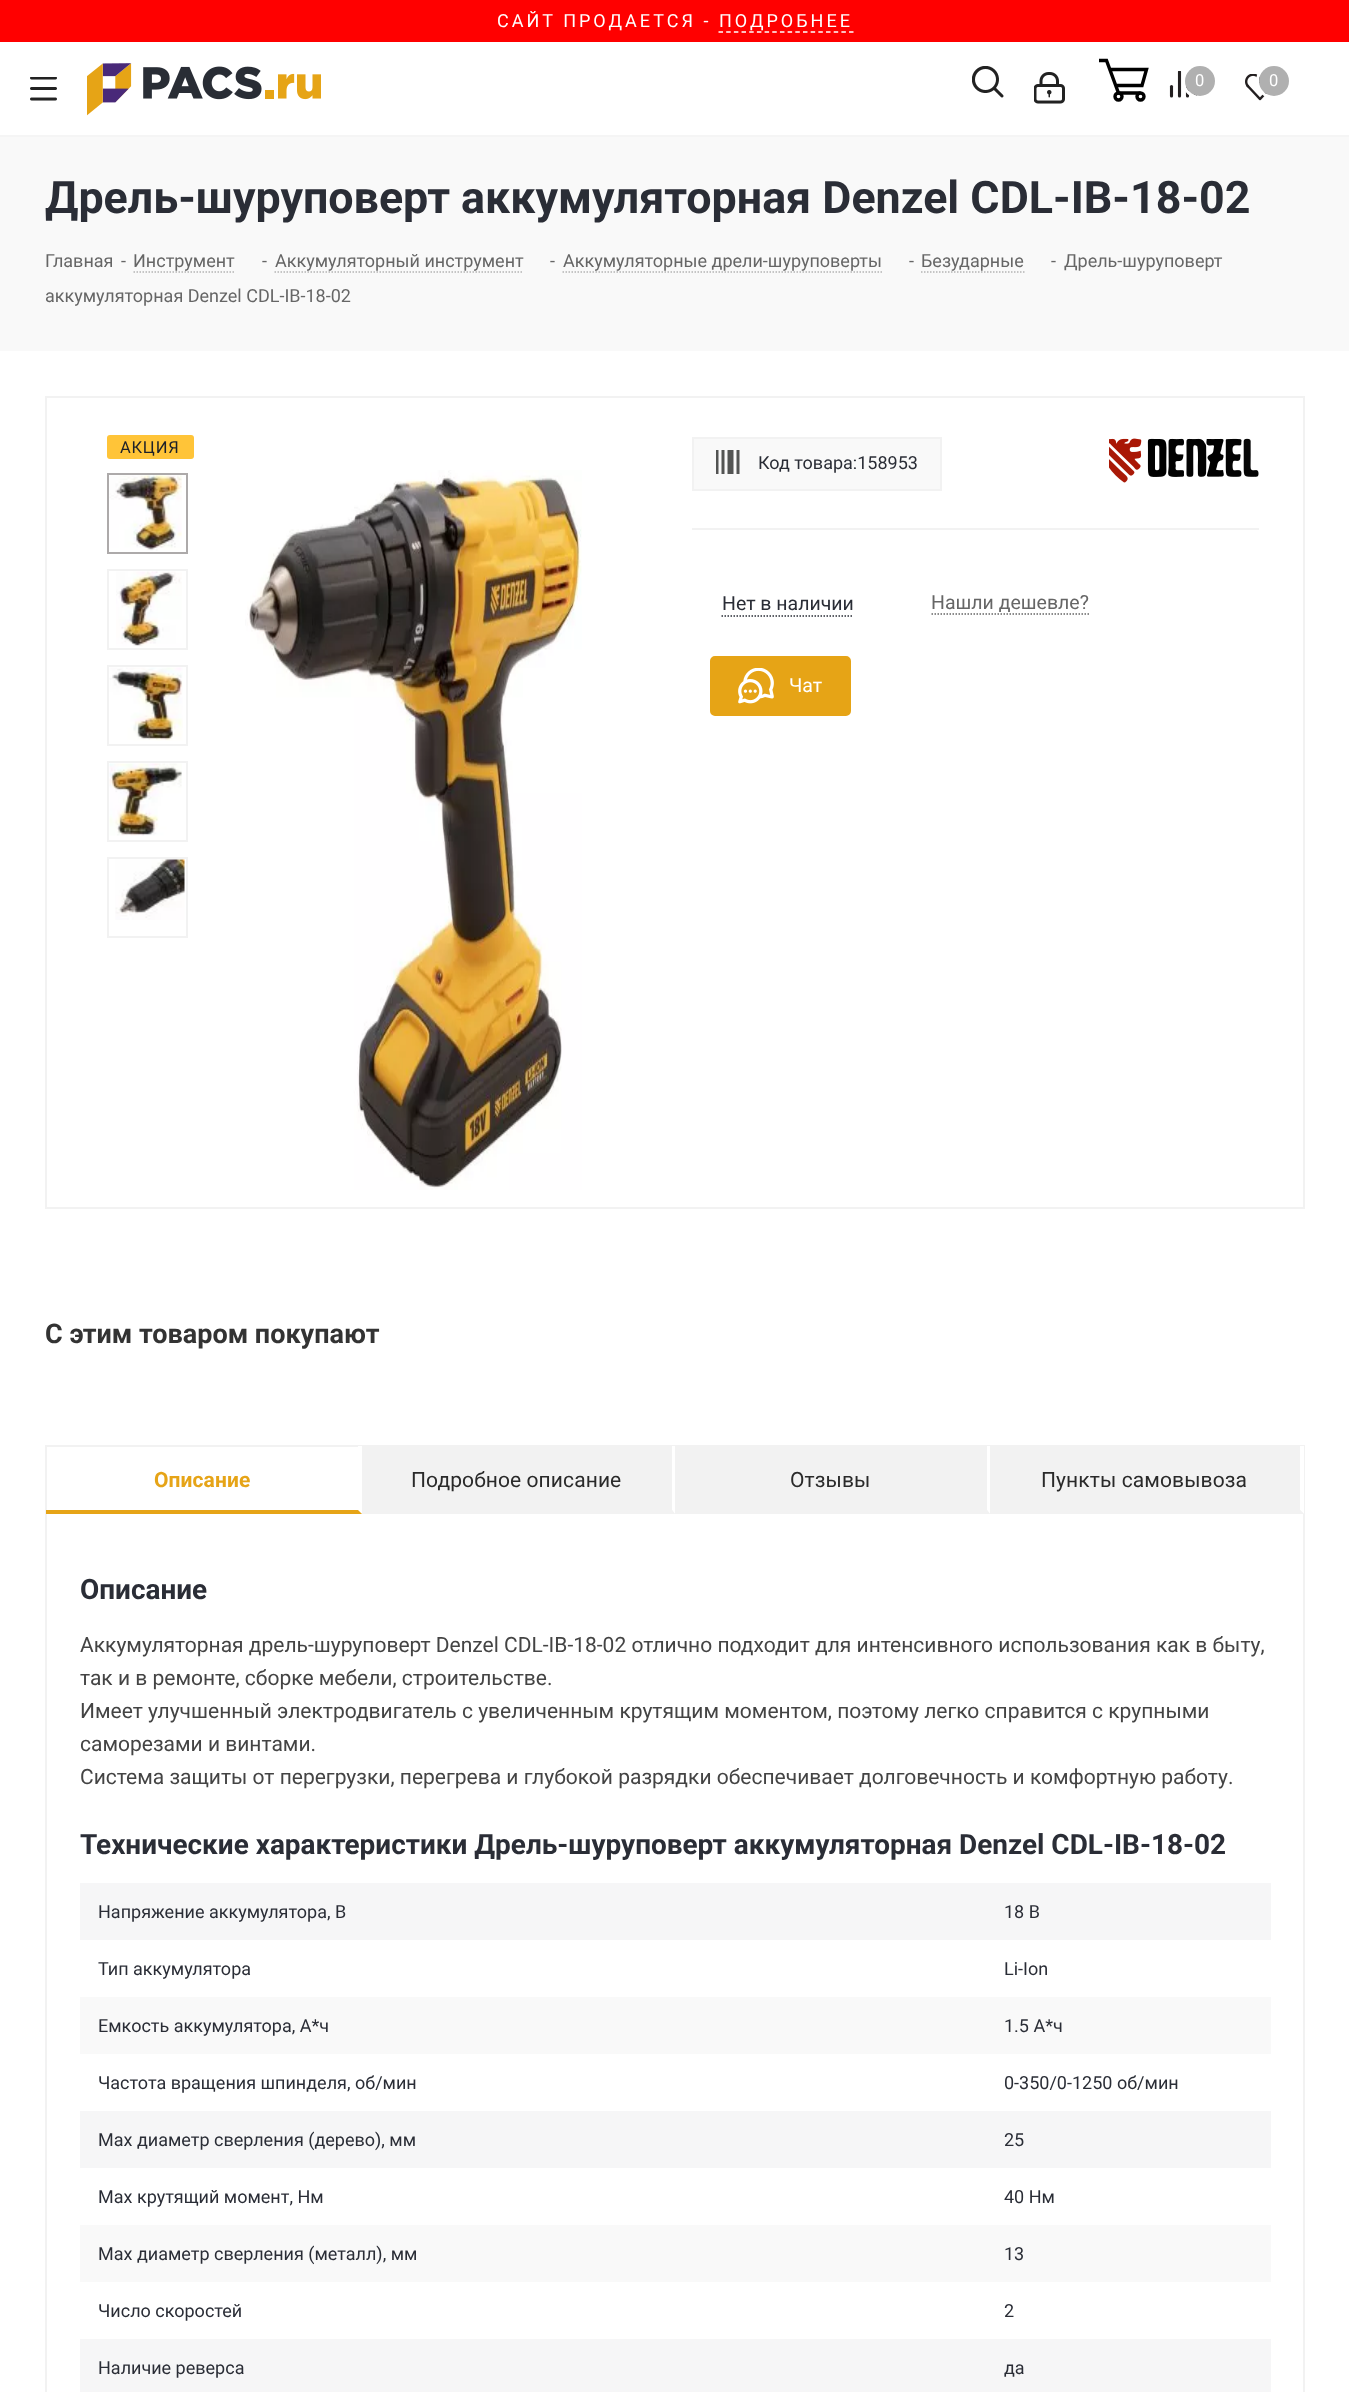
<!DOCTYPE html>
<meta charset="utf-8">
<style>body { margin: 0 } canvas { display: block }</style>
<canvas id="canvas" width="1349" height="2392"></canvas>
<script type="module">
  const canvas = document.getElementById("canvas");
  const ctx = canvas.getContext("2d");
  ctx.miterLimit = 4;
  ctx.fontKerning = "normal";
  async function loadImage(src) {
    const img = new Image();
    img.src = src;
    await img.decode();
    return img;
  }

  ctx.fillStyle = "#ffffff";
  ctx.fillRect(0, 0, 1349, 2392);
  ctx.fillStyle = "#ff0000";
  ctx.fillRect(0, 0, 1349, 42);
  ctx.letterSpacing = "3px";
  ctx.font = "18px Roboto";
  ctx.fillStyle = "#ffffff";
  ctx.fillText("САЙТ ПРОДАЕТСЯ -", 497, 27);
  ctx.fillText("ПОДРОБНЕЕ", 719, 27);
  ctx.beginPath();
  ctx.moveTo(718.5, 32);
  ctx.lineTo(853.5, 32);
  ctx.strokeStyle = "#ffffff";
  ctx.lineWidth = 1.5;
  ctx.setLineDash([4.5, 3.18]);
  ctx.stroke();
  ctx.fillStyle = "#f5f5f5";
  ctx.fillRect(0, 135, 1349, 2);
  ctx.drawImage(await loadImage("img1.png"), 30, 77, 27, 24);
  ctx.drawImage(await loadImage("img2.png"), 87, 63, 234, 53);
  ctx.drawImage(await loadImage("img3.png"), 972, 66, 32, 32);
  ctx.drawImage(await loadImage("img4.png"), 1034, 72, 31, 32);
  ctx.beginPath();
  ctx.moveTo(1099, 60.5);
  ctx.lineTo(1106.5, 60.5);
  ctx.lineTo(1118.5, 93);
  ctx.lineTo(1140.5, 93);
  ctx.moveTo(1109.5, 69.5);
  ctx.lineTo(1146.5, 69.5);
  ctx.lineTo(1142, 85.5);
  ctx.lineTo(1116.5, 85.5);
  ctx.strokeStyle = "#000000";
  ctx.lineWidth = 3.4;
  ctx.setLineDash([]);
  ctx.stroke();
  ctx.beginPath();
  ctx.arc(1140.5, 96.5, 3.5, 0, Math.PI * 2);
  ctx.stroke();
  ctx.beginPath();
  ctx.arc(1118.5, 96.5, 3.5, 0, Math.PI * 2);
  ctx.stroke();
  ctx.beginPath();
  ctx.moveTo(1171.5, 96);
  ctx.lineTo(1171.5, 86.5);
  ctx.strokeStyle = "#231f20";
  ctx.lineWidth = 3.1;
  ctx.lineCap = "round";
  ctx.lineJoin = "round";
  ctx.stroke();
  ctx.save();
  ctx.beginPath();
  ctx.rect(1170, 71, 27, 27);
  ctx.clip();
  ctx.beginPath();
  ctx.moveTo(1179.5, 96);
  ctx.lineTo(1179.5, 72);
  ctx.stroke();
  ctx.restore();
  ctx.beginPath();
  ctx.moveTo(1187.5, 96);
  ctx.lineTo(1187.5, 83);
  ctx.moveTo(1195.5, 96);
  ctx.lineTo(1195.5, 78);
  ctx.stroke();
  ctx.beginPath();
  ctx.arc(1200, 81, 16.5, 0, Math.PI * 2);
  ctx.strokeStyle = "#ffffff";
  ctx.lineWidth = 3;
  ctx.stroke();
  ctx.fillStyle = "#b0b0b0";
  ctx.beginPath();
  ctx.arc(1200, 81, 15, 0, Math.PI * 2);
  ctx.fill();
  ctx.letterSpacing = "0px";
  ctx.font = "16.5px Roboto";
  ctx.fillStyle = "#ffffff";
  ctx.fillText("0", 1195, 86);
  ctx.drawImage(await loadImage("img5.png"), 1245, 74, 22, 27);
  ctx.beginPath();
  ctx.arc(1274, 81, 16.5, 0, Math.PI * 2);
  ctx.stroke();
  ctx.fillStyle = "#b0b0b0";
  ctx.beginPath();
  ctx.arc(1274, 81, 15, 0, Math.PI * 2);
  ctx.fill();
  ctx.fillStyle = "#ffffff";
  ctx.fillText("0", 1269, 86);
  ctx.fillStyle = "#f9f9f9";
  ctx.fillRect(0, 137, 1349, 214);
  ctx.font = "bold 44.8px Roboto";
  ctx.fillStyle = "#2a2d36";
  ctx.fillText("Дрель-шуруповерт аккумуляторная Denzel CDL-IB-18-02", 45, 213);
  ctx.font = "18px Roboto";
  ctx.fillStyle = "#666666";
  ctx.fillText("Главная", 45, 267);
  ctx.fillText("-", 121, 267);
  ctx.fillText("Инструмент", 133, 267);
  ctx.beginPath();
  ctx.moveTo(133.5, 272);
  ctx.lineTo(235.5, 272);
  ctx.strokeStyle = "#b4b4b4";
  ctx.lineWidth = 1.5;
  ctx.lineCap = "butt";
  ctx.lineJoin = "miter";
  ctx.setLineDash([1.5, 1.5]);
  ctx.stroke();
  ctx.fillText("-", 262, 267);
  ctx.fillText("Аккумуляторный инструмент", 275, 267);
  ctx.beginPath();
  ctx.moveTo(274.5, 272);
  ctx.lineTo(523.5, 272);
  ctx.stroke();
  ctx.fillText("-", 550, 267);
  ctx.fillText("Аккумуляторные дрели-шуруповерты", 563, 267);
  ctx.beginPath();
  ctx.moveTo(562.5, 272);
  ctx.lineTo(882, 272);
  ctx.stroke();
  ctx.fillText("-", 909, 267);
  ctx.fillText("Безударные", 921, 267);
  ctx.beginPath();
  ctx.moveTo(921, 272);
  ctx.lineTo(1024.5, 272);
  ctx.stroke();
  ctx.fillText("-", 1051, 267);
  ctx.fillText("Дрель-шуруповерт", 1064, 267);
  ctx.fillText("аккумуляторная Denzel CDL-IB-18-02", 45, 302);
  ctx.strokeStyle = "#f2f2f2";
  ctx.lineWidth = 2;
  ctx.setLineDash([]);
  ctx.strokeRect(46, 397, 1258, 811);
  ctx.fillStyle = "#ffc438";
  ctx.beginPath();
  ctx.roundRect(107, 435, 87, 24, 3);
  ctx.fill();
  ctx.letterSpacing = "0.75px";
  ctx.font = "16.5px Roboto";
  ctx.fillStyle = "#1d2029";
  ctx.fillText("АКЦИЯ", 120, 453);
  ctx.strokeStyle = "#adaaaa";
  ctx.strokeRect(108, 474, 79, 79);
  ctx.drawImage(await loadImage("img6.png"), 109, 475, 73, 76);
  ctx.strokeStyle = "#f2f2f2";
  ctx.strokeRect(108, 570, 79, 79);
  ctx.drawImage(await loadImage("img7.png"), 116, 571, 66, 76);
  ctx.strokeRect(108, 666, 79, 79);
  ctx.drawImage(await loadImage("img8.png"), 109, 667, 74, 74);
  ctx.strokeRect(108, 762, 79, 79);
  ctx.drawImage(await loadImage("img9.png"), 109, 763, 73, 73);
  ctx.strokeRect(108, 858, 79, 79);
  ctx.drawImage(await loadImage("img10.png"), 115, 859, 70, 61);
  ctx.drawImage(await loadImage("img11.png"), 245, 470, 337, 720);
  ctx.fillStyle = "#f2f2f2";
  ctx.fillRect(692, 528, 567, 2);
  ctx.fillStyle = "#f9f9f9";
  ctx.beginPath();
  ctx.rect(693, 438, 248, 52);
  ctx.fill();
  ctx.stroke();
  ctx.drawImage(await loadImage("img12.png"), 716, 450, 24, 24);
  ctx.letterSpacing = "0px";
  ctx.font = "18px Roboto";
  ctx.fillStyle = "#2a2d36";
  ctx.fillText("Код товара:158953", 758, 469);
  ctx.drawImage(await loadImage("img13.png"), 1109, 438, 150, 45);
  ctx.font = "19.5px Roboto";
  ctx.fillText("Нет в наличии", 722, 610);
  ctx.beginPath();
  ctx.moveTo(721.5, 616);
  ctx.lineTo(853.5, 616);
  ctx.strokeStyle = "#2a2d36";
  ctx.lineWidth = 1.5;
  ctx.setLineDash([1.5, 1.5]);
  ctx.stroke();
  ctx.fillStyle = "#666666";
  ctx.fillText("Нашли дешевле?", 931, 609);
  ctx.beginPath();
  ctx.moveTo(931.5, 614);
  ctx.lineTo(1089, 614);
  ctx.strokeStyle = "#666666";
  ctx.stroke();
  ctx.fillStyle = "#e6a416";
  ctx.beginPath();
  ctx.roundRect(711, 657, 139, 58, 4);
  ctx.fill();
  ctx.strokeStyle = "#e6a416";
  ctx.lineWidth = 2;
  ctx.setLineDash([]);
  ctx.stroke();
  ctx.drawImage(await loadImage("img14.png"), 738, 668, 36, 36);
  ctx.fillStyle = "#ffffff";
  ctx.fillText("Чат", 789, 692);
  ctx.font = "bold 27px Roboto";
  ctx.fillStyle = "#333333";
  ctx.fillText("С этим товаром покупают", 45, 1343);
  ctx.strokeStyle = "#f2f2f2";
  ctx.strokeRect(46, 1446, 1258, 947);
  ctx.fillStyle = "#ffffff";
  ctx.beginPath();
  ctx.moveTo(362, 1446);
  ctx.lineTo(362, 1514);
  ctx.lineTo(358, 1510);
  ctx.lineTo(358, 1446);
  ctx.closePath();
  ctx.fill();
  ctx.fillStyle = "#e6a417";
  ctx.beginPath();
  ctx.moveTo(362, 1514);
  ctx.lineTo(46, 1514);
  ctx.lineTo(46, 1510);
  ctx.lineTo(358, 1510);
  ctx.closePath();
  ctx.fill();
  ctx.letterSpacing = "0.1px";
  ctx.font = "bold 21px Roboto";
  ctx.fillText("Описание", 154, 1487);
  ctx.fillStyle = "#f2f2f2";
  ctx.fillRect(362, 1447, 941, 67);
  ctx.fillStyle = "#ffffff";
  ctx.beginPath();
  ctx.moveTo(675, 1446);
  ctx.lineTo(675, 1514);
  ctx.lineTo(672, 1510);
  ctx.lineTo(672, 1446);
  ctx.closePath();
  ctx.fill();
  ctx.fillStyle = "#f2f2f2";
  ctx.beginPath();
  ctx.moveTo(675, 1514);
  ctx.lineTo(362, 1514);
  ctx.lineTo(362, 1510);
  ctx.lineTo(672, 1510);
  ctx.closePath();
  ctx.fill();
  ctx.font = "21px Roboto";
  ctx.fillStyle = "#2a2a2a";
  ctx.fillText("Подробное описание", 411, 1487);
  ctx.fillStyle = "#ffffff";
  ctx.beginPath();
  ctx.moveTo(990, 1446);
  ctx.lineTo(990, 1514);
  ctx.lineTo(987, 1510);
  ctx.lineTo(987, 1446);
  ctx.closePath();
  ctx.fill();
  ctx.fillStyle = "#f2f2f2";
  ctx.beginPath();
  ctx.moveTo(990, 1514);
  ctx.lineTo(675, 1514);
  ctx.lineTo(675, 1510);
  ctx.lineTo(987, 1510);
  ctx.closePath();
  ctx.fill();
  ctx.fillStyle = "#2a2a2a";
  ctx.fillText("Отзывы", 790, 1487);
  ctx.fillStyle = "#ffffff";
  ctx.beginPath();
  ctx.moveTo(1304, 1446);
  ctx.lineTo(1304, 1514);
  ctx.lineTo(1300, 1510);
  ctx.lineTo(1300, 1446);
  ctx.closePath();
  ctx.fill();
  ctx.fillStyle = "#f2f2f2";
  ctx.beginPath();
  ctx.moveTo(1304, 1514);
  ctx.lineTo(990, 1514);
  ctx.lineTo(990, 1510);
  ctx.lineTo(1300, 1510);
  ctx.closePath();
  ctx.fill();
  ctx.fillStyle = "#2a2a2a";
  ctx.fillText("Пункты самовывоза", 1041, 1487);
  ctx.letterSpacing = "0px";
  ctx.font = "bold 27.95px Roboto";
  ctx.fillStyle = "#2a2d36";
  ctx.fillText("Описание", 80, 1599);
  ctx.font = "21px Roboto";
  ctx.fillStyle = "#444444";
  ctx.fillText("Аккумуляторная дрель-шуруповерт Denzel CDL-IB-18-02 отлично подходит для интенсивного использования как в быту,", 80, 1652);
  ctx.fillText("так и в ремонте, сборке мебели, строительстве.", 80, 1685);
  ctx.fillText("Имеет улучшенный электродвигатель с увеличенным крутящим моментом, поэтому легко справится с крупными", 80, 1718);
  ctx.fillText("саморезами и винтами.", 80, 1751);
  ctx.fillText("Система защиты от перегрузки, перегрева и глубокой разрядки обеспечивает долговечность и комфортную работу.", 80, 1784);
  ctx.font = "bold 27.95px Roboto";
  ctx.fillStyle = "#2a2d36";
  ctx.fillText("Технические характеристики Дрель-шуруповерт аккумуляторная Denzel CDL-IB-18-02", 80, 1854);
  ctx.fillStyle = "#f6f6f7";
  ctx.fillRect(80, 1883, 1191, 57);
  ctx.font = "18px Roboto";
  ctx.fillStyle = "#2a2d36";
  ctx.fillText("Напряжение аккумулятора, В", 98, 1918);
  ctx.fillText("18 В", 1004, 1918);
  ctx.fillText("Тип аккумулятора", 98, 1975);
  ctx.fillText("Li-Ion", 1004, 1975);
  ctx.fillStyle = "#f9f9f9";
  ctx.fillRect(80, 1997, 1191, 57);
  ctx.fillStyle = "#2a2d36";
  ctx.fillText("Емкость аккумулятора, А*ч", 98, 2032);
  ctx.fillText("1.5 А*ч", 1004, 2032);
  ctx.fillText("Частота вращения шпинделя, об/мин", 98, 2089);
  ctx.fillText("0-350/0-1250 об/мин", 1004, 2089);
  ctx.fillStyle = "#f6f6f7";
  ctx.fillRect(80, 2111, 1191, 57);
  ctx.fillStyle = "#2a2d36";
  ctx.fillText("Max диаметр сверления (дерево), мм", 98, 2146);
  ctx.fillText("25", 1004, 2146);
  ctx.fillText("Max крутящий момент, Нм", 98, 2203);
  ctx.fillText("40 Нм", 1004, 2203);
  ctx.fillStyle = "#f9f9f9";
  ctx.fillRect(80, 2225, 1191, 57);
  ctx.fillStyle = "#2a2d36";
  ctx.fillText("Max диаметр сверления (металл), мм", 98, 2260);
  ctx.fillText("13", 1004, 2260);
  ctx.fillText("Число скоростей", 98, 2317);
  ctx.fillText("2", 1004, 2317);
  ctx.fillStyle = "#f6f6f7";
  ctx.fillRect(80, 2339, 1191, 53);
  ctx.fillStyle = "#2a2d36";
  ctx.fillText("Наличие реверса", 98, 2374);
  ctx.fillText("да", 1004, 2374);
</script>
